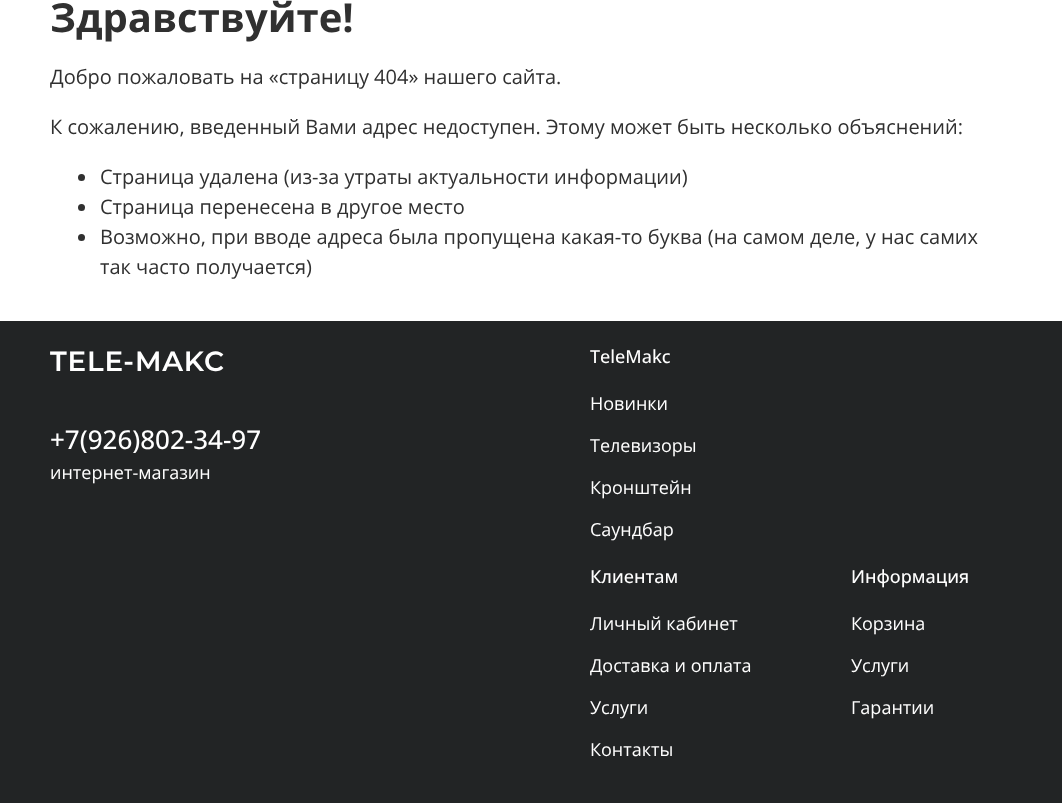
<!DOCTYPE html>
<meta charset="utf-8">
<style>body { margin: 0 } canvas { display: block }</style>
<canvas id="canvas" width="1062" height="803"></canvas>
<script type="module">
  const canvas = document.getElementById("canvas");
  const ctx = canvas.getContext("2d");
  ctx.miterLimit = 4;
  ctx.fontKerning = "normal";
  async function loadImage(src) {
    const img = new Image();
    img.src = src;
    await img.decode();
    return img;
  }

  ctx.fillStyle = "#ffffff";
  ctx.fillRect(0, 0, 1062, 803);
  ctx.font = "bold 40px Open Sans";
  ctx.fillStyle = "#303030";
  ctx.fillText("Здравствуйте!", 50, 32);
  ctx.font = "20px Open Sans";
  ctx.fillText("Добро пожаловать на «страницу 404» нашего сайта.", 50, 84);
  ctx.fillText("К сожалению, введенный Вами адрес недоступен. Этому может быть несколько объяснений:", 50, 134);
  ctx.beginPath();
  ctx.arc(81.5, 177.5, 3.5, 0, Math.PI * 2);
  ctx.fill();
  ctx.fillText("Страница удалена (из-за утраты актуальности информации)", 100, 184);
  ctx.beginPath();
  ctx.arc(81.5, 207.5, 3.5, 0, Math.PI * 2);
  ctx.fill();
  ctx.fillText("Страница перенесена в другое место", 100, 214);
  ctx.beginPath();
  ctx.arc(81.5, 237.5, 3.5, 0, Math.PI * 2);
  ctx.fill();
  ctx.fillText("Возможно, при вводе адреса была пропущена какая-то буква (на самом деле, у нас самих", 100, 244);
  ctx.fillText("так часто получается)", 100, 274);
  ctx.fillStyle = "#222425";
  ctx.fillRect(0, 321, 1062, 482);
  ctx.drawImage(await loadImage("img1.png"), 50, 351, 174, 21);
  ctx.font = "500 26px Open Sans";
  ctx.fillStyle = "#ffffff";
  ctx.fillText("+7(926)802-34-97", 50, 449);
  ctx.font = "18px Open Sans";
  ctx.fillText("интернет-магазин", 50, 479);
  ctx.font = "500 18px Open Sans";
  ctx.fillText("TeleMakc", 590, 363);
  ctx.font = "18px Open Sans";
  ctx.fillText("Новинки", 590, 410);
  ctx.fillText("Телевизоры", 590, 452);
  ctx.fillText("Кронштейн", 590, 494);
  ctx.fillText("Саундбар", 590, 536);
  ctx.font = "500 18px Open Sans";
  ctx.fillText("Клиентам", 590, 583);
  ctx.font = "18px Open Sans";
  ctx.fillText("Личный кабинет", 590, 630);
  ctx.fillText("Доставка и оплата", 590, 672);
  ctx.fillText("Услуги", 590, 714);
  ctx.fillText("Контакты", 590, 756);
  ctx.font = "500 18px Open Sans";
  ctx.fillText("Информация", 851, 583);
  ctx.font = "18px Open Sans";
  ctx.fillText("Корзина", 851, 630);
  ctx.fillText("Услуги", 851, 672);
  ctx.fillText("Гарантии", 851, 714);
</script>
